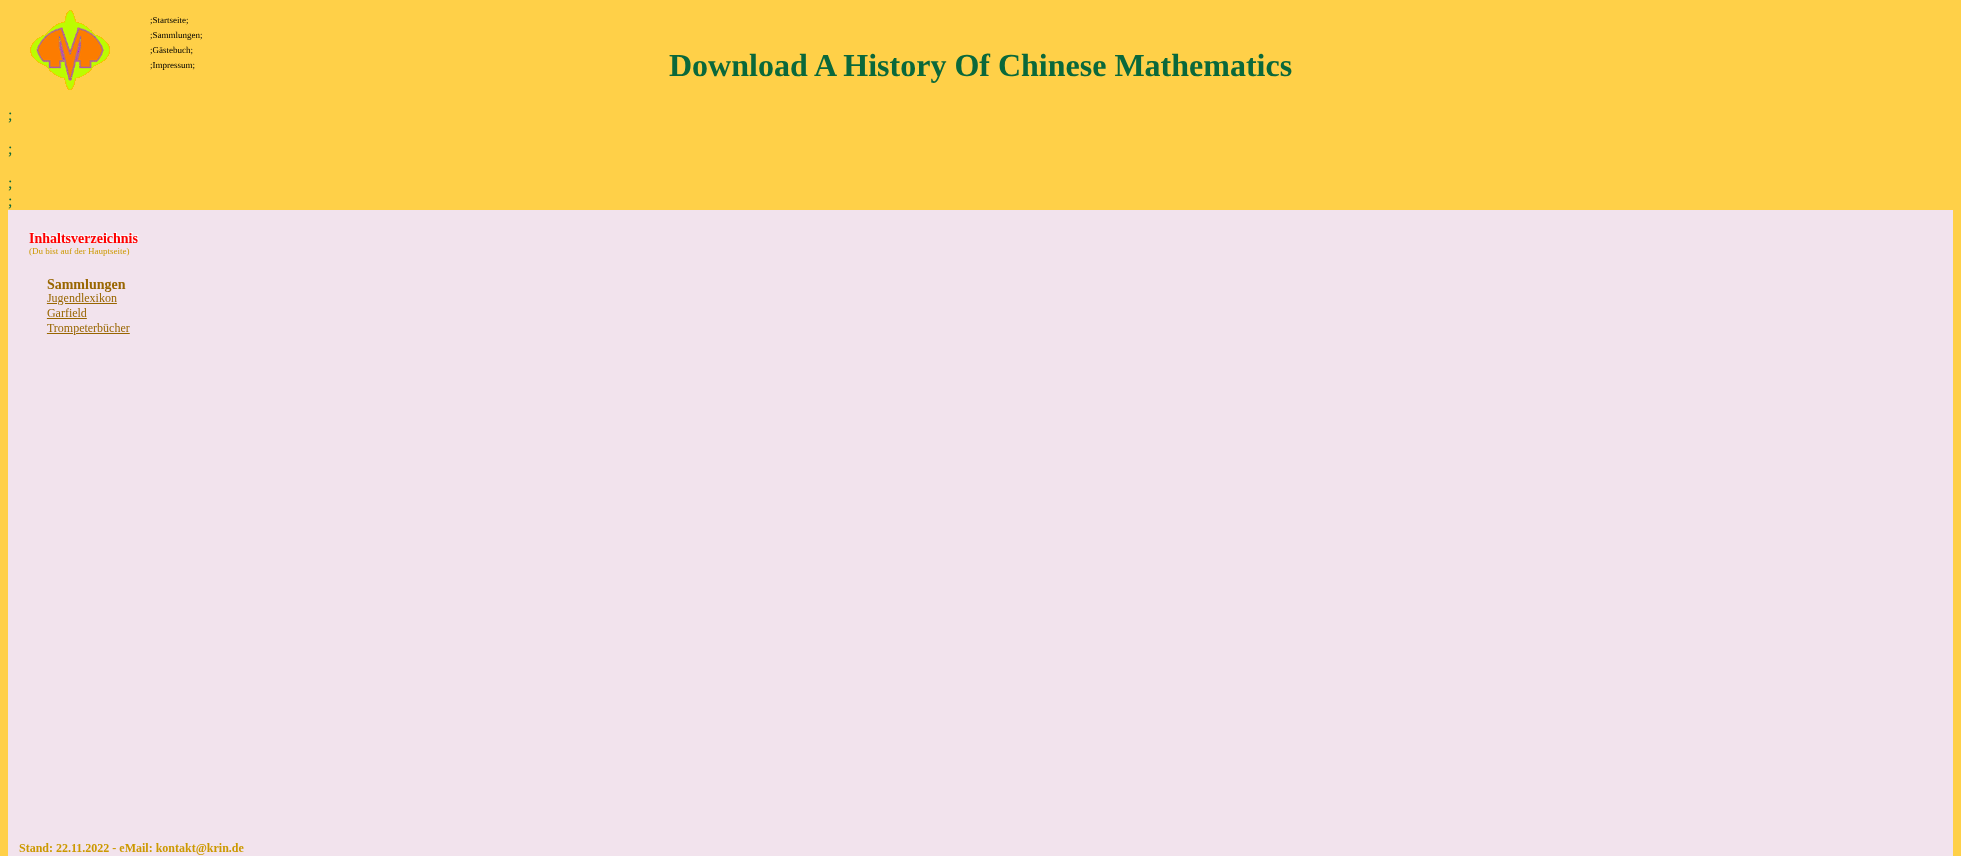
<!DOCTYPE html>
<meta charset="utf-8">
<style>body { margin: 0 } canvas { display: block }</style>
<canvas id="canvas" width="1961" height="856"></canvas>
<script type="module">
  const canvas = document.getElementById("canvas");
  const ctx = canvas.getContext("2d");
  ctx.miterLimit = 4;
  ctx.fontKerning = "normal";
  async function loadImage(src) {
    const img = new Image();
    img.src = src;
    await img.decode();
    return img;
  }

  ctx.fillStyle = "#ffd048";
  ctx.fillRect(0, 0, 1961, 856);
  ctx.drawImage(await loadImage("img1.png"), 30, 10, 80, 80);
  ctx.font = "9px Liberation Serif";
  ctx.fillStyle = "#000000";
  ctx.fillText(";Startseite;", 150, 23);
  ctx.fillText(";Sammlungen;", 150, 38);
  ctx.fillText(";Gästebuch;", 150, 53);
  ctx.fillText(";Impressum;", 150, 68);
  ctx.font = "bold 32px Liberation Serif";
  ctx.fillStyle = "#0a683b";
  ctx.fillText("Download A History Of Chinese Mathematics", 669, 76);
  ctx.font = "16px Liberation Serif";
  ctx.fillText(";", 8, 120);
  ctx.fillText(";", 8, 154);
  ctx.fillText(";", 8, 188);
  ctx.fillText(";", 8, 206);
  ctx.drawImage(await loadImage("img2.png"), 8, 210, 1945, 646);
</script>
